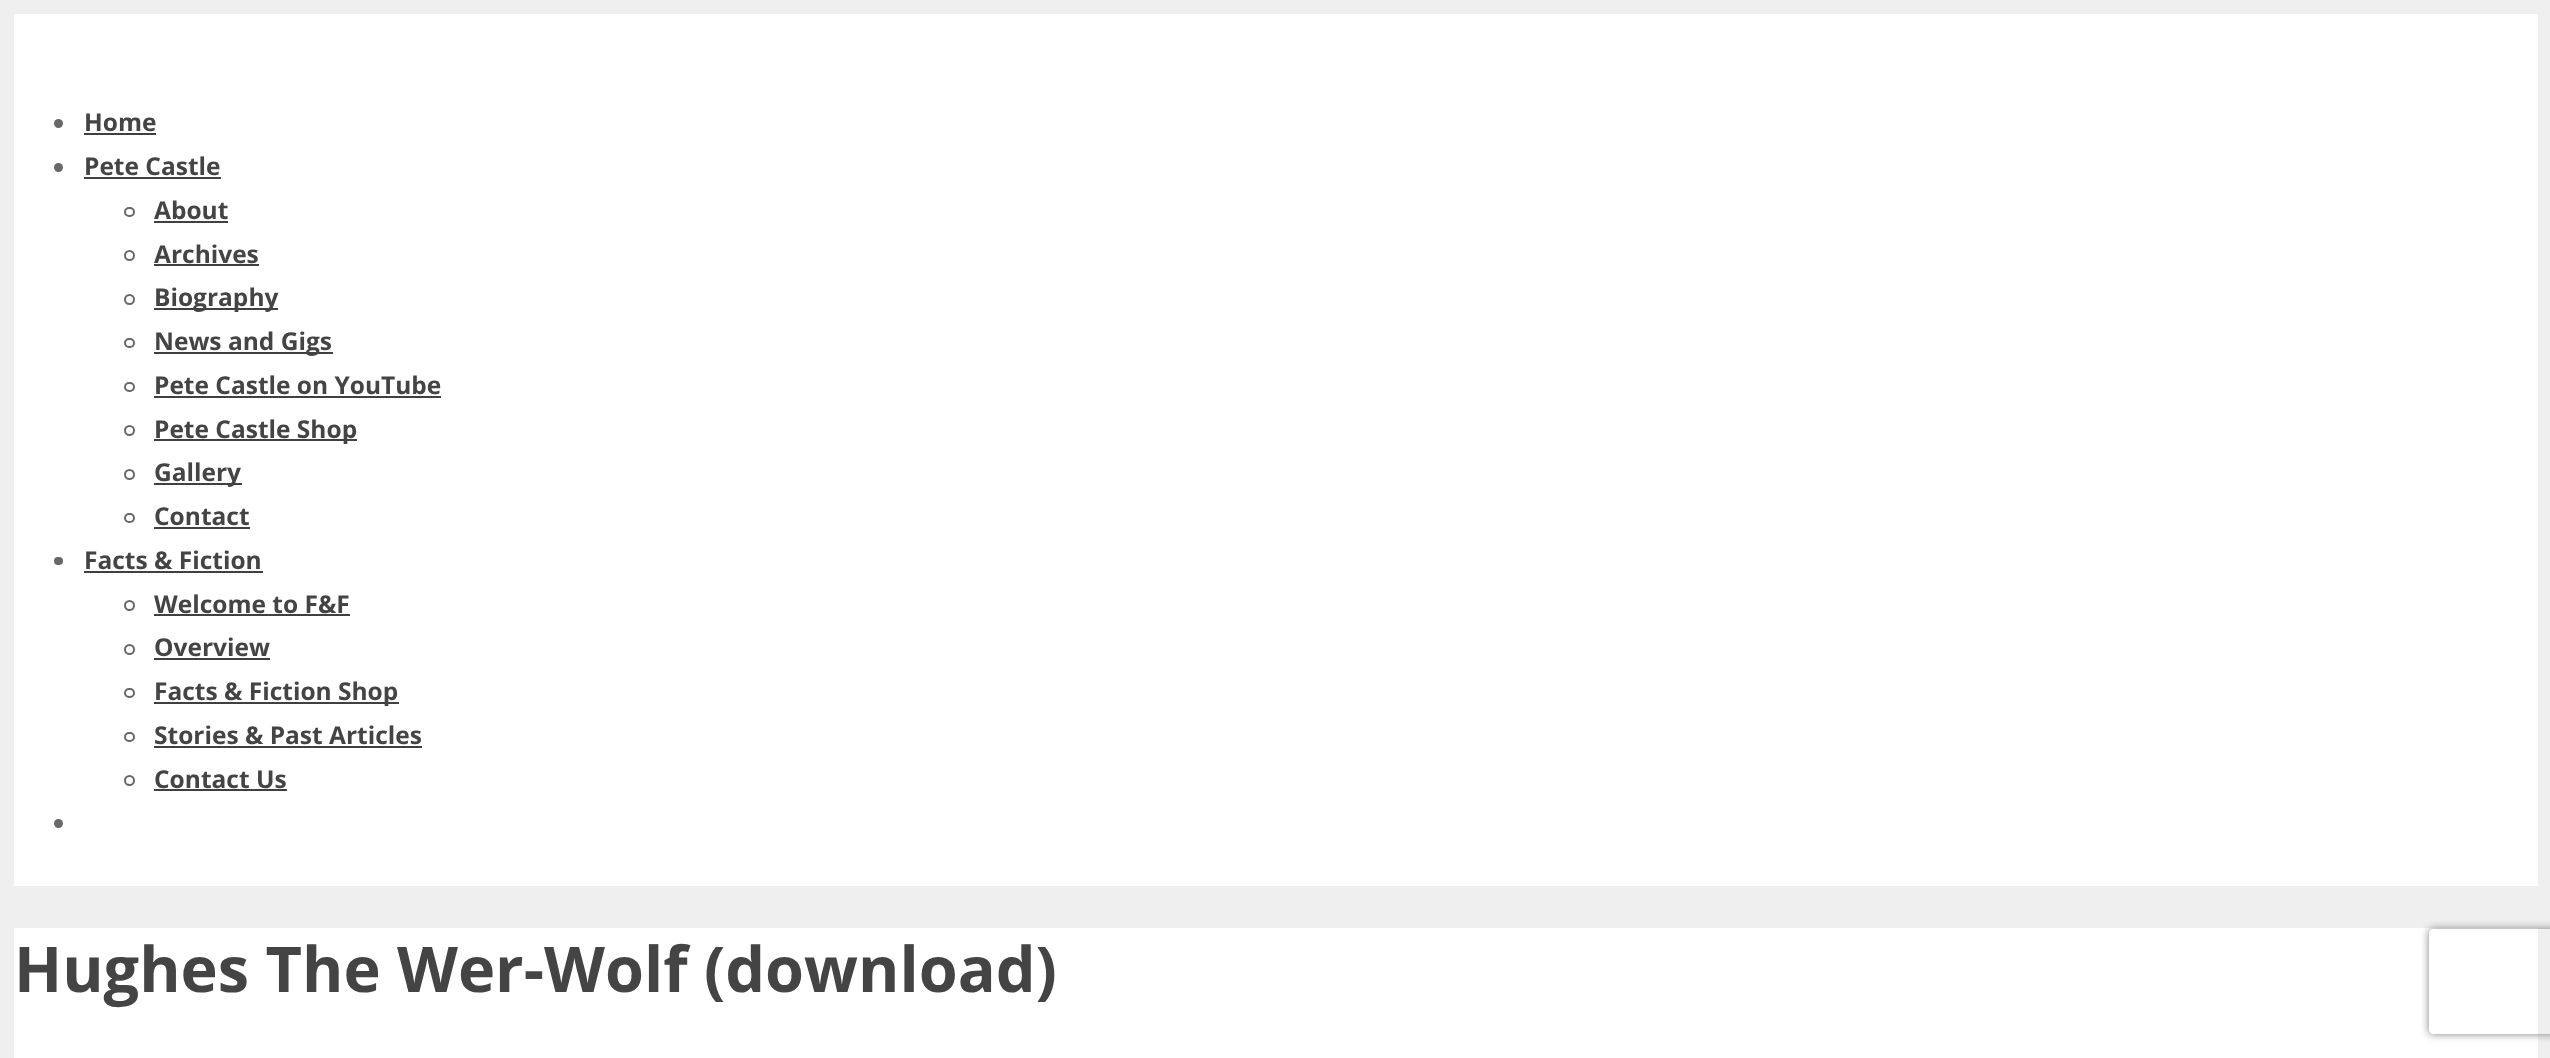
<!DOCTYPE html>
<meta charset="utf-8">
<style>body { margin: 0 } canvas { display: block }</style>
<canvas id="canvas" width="2550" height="1058"></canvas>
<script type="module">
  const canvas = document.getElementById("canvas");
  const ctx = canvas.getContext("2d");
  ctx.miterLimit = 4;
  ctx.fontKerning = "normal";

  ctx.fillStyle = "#efefef";
  ctx.fillRect(0, 0, 2550, 1058);
  ctx.fillStyle = "#ffffff";
  ctx.fillRect(14, 14, 2524, 872);
  ctx.fillStyle = "#686868";
  ctx.beginPath();
  ctx.arc(58.5, 123.5, 4.5, 0, Math.PI * 2);
  ctx.fill();
  ctx.font = "bold 24.5px Open Sans";
  ctx.fillStyle = "#444444";
  ctx.fillText("Home", 84, 131);
  ctx.fillStyle = "#404040";
  ctx.fillRect(84, 133, 72, 2);
  ctx.fillStyle = "#686868";
  ctx.beginPath();
  ctx.arc(58.5, 167.5, 4.5, 0, Math.PI * 2);
  ctx.fill();
  ctx.fillStyle = "#444444";
  ctx.fillText("Pete Castle", 84, 175);
  ctx.fillStyle = "#404040";
  ctx.fillRect(84, 177, 137, 2);
  ctx.beginPath();
  ctx.roundRect(125, 208, 9, 8, 4);
  ctx.strokeStyle = "#686868";
  ctx.lineWidth = 2;
  ctx.stroke();
  ctx.fillStyle = "#444444";
  ctx.fillText("About", 154, 219);
  ctx.fillStyle = "#404040";
  ctx.fillRect(154, 221, 74, 2);
  ctx.beginPath();
  ctx.arc(129.5, 255.5, 4.5, 0, Math.PI * 2);
  ctx.stroke();
  ctx.fillStyle = "#444444";
  ctx.fillText("Archives", 154, 263);
  ctx.fillStyle = "#404040";
  ctx.fillRect(154, 264, 105, 2);
  ctx.beginPath();
  ctx.arc(129.5, 299.5, 4.5, 0, Math.PI * 2);
  ctx.stroke();
  ctx.fillRect(154, 308, 124, 2);
  ctx.fillStyle = "#444444";
  ctx.fillText("Biography", 154, 306);
  ctx.beginPath();
  ctx.roundRect(125, 339, 9, 8, 4);
  ctx.stroke();
  ctx.fillStyle = "#404040";
  ctx.fillRect(154, 352, 179, 2);
  ctx.fillStyle = "#444444";
  ctx.fillText("News and Gigs", 154, 350);
  ctx.beginPath();
  ctx.roundRect(125, 383, 9, 8, 4);
  ctx.stroke();
  ctx.fillText("Pete Castle on YouTube", 154, 394);
  ctx.fillStyle = "#404040";
  ctx.fillRect(154, 396, 287, 2);
  ctx.beginPath();
  ctx.arc(129.5, 430.5, 4.5, 0, Math.PI * 2);
  ctx.stroke();
  ctx.fillRect(154, 439, 203, 2);
  ctx.fillStyle = "#444444";
  ctx.fillText("Pete Castle Shop", 154, 438);
  ctx.beginPath();
  ctx.arc(129.5, 474.5, 4.5, 0, Math.PI * 2);
  ctx.stroke();
  ctx.fillStyle = "#404040";
  ctx.fillRect(154, 483, 88, 2);
  ctx.fillStyle = "#444444";
  ctx.fillText("Gallery", 154, 481);
  ctx.beginPath();
  ctx.roundRect(125, 514, 9, 8, 4);
  ctx.stroke();
  ctx.fillText("Contact", 154, 525);
  ctx.fillStyle = "#404040";
  ctx.fillRect(154, 527, 96, 2);
  ctx.fillStyle = "#686868";
  ctx.beginPath();
  ctx.roundRect(54, 557, 9, 8, 4);
  ctx.fill();
  ctx.fillStyle = "#444444";
  ctx.fillText("Facts & Fiction", 84, 569);
  ctx.fillStyle = "#404040";
  ctx.fillRect(84, 571, 179, 2);
  ctx.beginPath();
  ctx.arc(129.5, 605.5, 4.5, 0, Math.PI * 2);
  ctx.stroke();
  ctx.fillStyle = "#444444";
  ctx.fillText("Welcome to F&F", 154, 613);
  ctx.fillStyle = "#404040";
  ctx.fillRect(154, 614, 196, 2);
  ctx.beginPath();
  ctx.arc(129.5, 649.5, 4.5, 0, Math.PI * 2);
  ctx.stroke();
  ctx.fillStyle = "#444444";
  ctx.fillText("Overview", 154, 656);
  ctx.fillStyle = "#404040";
  ctx.fillRect(154, 658, 116, 2);
  ctx.beginPath();
  ctx.roundRect(125, 689, 9, 8, 4);
  ctx.stroke();
  ctx.fillRect(154, 702, 245, 2);
  ctx.fillStyle = "#444444";
  ctx.fillText("Facts & Fiction Shop", 154, 700);
  ctx.beginPath();
  ctx.roundRect(125, 733, 9, 8, 4);
  ctx.stroke();
  ctx.fillText("Stories & Past Articles", 154, 744);
  ctx.fillStyle = "#404040";
  ctx.fillRect(154, 746, 268, 2);
  ctx.beginPath();
  ctx.arc(129.5, 780.5, 4.5, 0, Math.PI * 2);
  ctx.stroke();
  ctx.fillStyle = "#444444";
  ctx.fillText("Contact Us", 154, 788);
  ctx.fillStyle = "#404040";
  ctx.fillRect(154, 789, 133, 2);
  ctx.fillStyle = "#686868";
  ctx.beginPath();
  ctx.arc(58.5, 823.5, 4.5, 0, Math.PI * 2);
  ctx.fill();
  ctx.fillStyle = "#ffffff";
  ctx.fillRect(14, 928, 2524, 130);
  ctx.font = "bold 63px Open Sans";
  ctx.fillStyle = "#444444";
  ctx.fillText("Hughes The Wer-Wolf (download)", 14, 992);
  ctx.save();
  ctx.beginPath();
  ctx.moveTo(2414, 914);
  ctx.lineTo(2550, 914);
  ctx.lineTo(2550, 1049);
  ctx.lineTo(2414, 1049);
  ctx.closePath();
  ctx.moveTo(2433, 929);
  ctx.lineTo(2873, 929);
  ctx.bezierCurveTo(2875, 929, 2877, 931, 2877, 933);
  ctx.lineTo(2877, 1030);
  ctx.bezierCurveTo(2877, 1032, 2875, 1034, 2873, 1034);
  ctx.lineTo(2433, 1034);
  ctx.bezierCurveTo(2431, 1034, 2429, 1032, 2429, 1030);
  ctx.lineTo(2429, 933);
  ctx.bezierCurveTo(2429, 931, 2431, 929, 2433, 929);
  ctx.closePath();
  ctx.clip("evenodd");
  ctx.fillStyle = "#808080";
  ctx.filter = "blur(4.5px)";
  ctx.beginPath();
  ctx.roundRect(2429, 929, 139, 105, 4);
  ctx.fill();
  ctx.filter = "none";
  ctx.restore();
</script>
